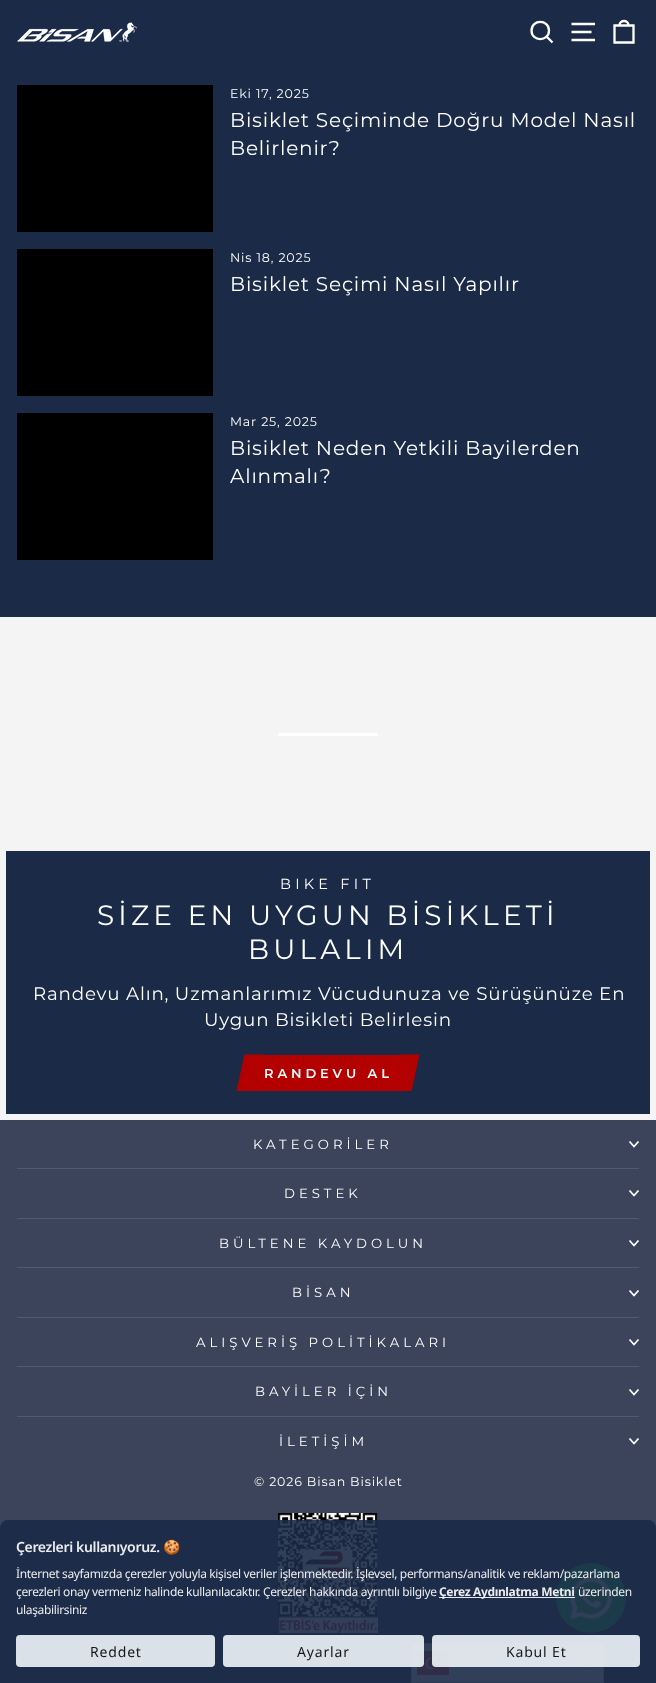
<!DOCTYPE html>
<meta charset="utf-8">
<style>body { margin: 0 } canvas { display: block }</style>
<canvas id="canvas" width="656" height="1683"></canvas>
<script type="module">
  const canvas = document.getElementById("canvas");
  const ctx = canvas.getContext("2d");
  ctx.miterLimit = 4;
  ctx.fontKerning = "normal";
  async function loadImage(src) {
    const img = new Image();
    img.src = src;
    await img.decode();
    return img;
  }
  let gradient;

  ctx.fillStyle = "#1b2a47";
  ctx.fillRect(0, 0, 656, 1683);
  ctx.drawImage(await loadImage("img1.png"), 17, 22, 120, 21);
  ctx.beginPath();
  ctx.moveTo(549, 30.5);
  ctx.bezierCurveTo(549, 42, 531.5, 42, 531.5, 30.5);
  ctx.bezierCurveTo(531.5, 19, 549, 19, 549, 30.5);
  ctx.closePath();
  ctx.moveTo(552.5, 42.5);
  ctx.lineTo(546.5, 36.5);
  ctx.strokeStyle = "#ffffff";
  ctx.lineWidth = 2.3;
  ctx.stroke();
  ctx.beginPath();
  ctx.moveTo(571.5, 24);
  ctx.lineTo(595, 24);
  ctx.moveTo(571.5, 32);
  ctx.lineTo(591.5, 32);
  ctx.moveTo(571.5, 40);
  ctx.lineTo(595, 40);
  ctx.stroke();
  ctx.beginPath();
  ctx.moveTo(614.5, 25.5);
  ctx.lineTo(633.5, 25.5);
  ctx.lineTo(633.5, 42.5);
  ctx.lineTo(614.5, 42.5);
  ctx.closePath();
  ctx.moveTo(619.5, 25.5);
  ctx.bezierCurveTo(619.5, 19.5, 628.5, 19.5, 628.5, 25.5);
  ctx.stroke();
  ctx.fillStyle = "#000000";
  ctx.fillRect(17, 85, 196, 147);
  ctx.letterSpacing = "0.83px";
  ctx.font = "12.6px Montserrat";
  ctx.fillStyle = "#ffffff";
  ctx.fillText("Eki 17, 2025", 230, 98);
  ctx.font = "20px Montserrat";
  ctx.fillText("Bisiklet Seçiminde Doğru Model Nasıl", 230, 127);
  ctx.fillText("Belirlenir?", 230, 155);
  ctx.fillStyle = "#000000";
  ctx.fillRect(17, 249, 196, 147);
  ctx.font = "12.6px Montserrat";
  ctx.fillStyle = "#ffffff";
  ctx.fillText("Nis 18, 2025", 230, 262);
  ctx.font = "20px Montserrat";
  ctx.fillText("Bisiklet Seçimi Nasıl Yapılır", 230, 291);
  ctx.fillStyle = "#000000";
  ctx.fillRect(17, 413, 196, 147);
  ctx.font = "12.6px Montserrat";
  ctx.fillStyle = "#ffffff";
  ctx.fillText("Mar 25, 2025", 230, 426);
  ctx.font = "20px Montserrat";
  ctx.fillText("Bisiklet Neden Yetkili Bayilerden", 230, 455);
  ctx.fillText("Alınmalı?", 230, 483);
  ctx.fillStyle = "#f4f4f4";
  ctx.fillRect(0, 617, 656, 503);
  ctx.fillStyle = "#ffffff";
  ctx.fillRect(278, 733, 100, 3);
  ctx.fillStyle = "#1b2a47";
  ctx.fillRect(6, 851, 644, 263);
  ctx.letterSpacing = "4.25px";
  ctx.font = "14.5px Montserrat";
  ctx.fillStyle = "#ffffff";
  ctx.fillText("BIKE FIT", 280, 889);
  ctx.letterSpacing = "4.2px";
  ctx.font = "27.9px Montserrat";
  ctx.fillText("SİZE EN UYGUN BİSİKLETİ", 97, 925);
  ctx.fillText("BULALIM", 248, 959);
  ctx.letterSpacing = "0.83px";
  ctx.font = "18.25px Montserrat";
  ctx.fillText("Randevu Alın, Uzmanlarımız Vücudunuza ve Sürüşünüze En", 33, 1000);
  ctx.fillText("Uygun Bisikleti Belirlesin", 204, 1026);
  ctx.fillStyle = "#b30000";
  ctx.fillRect(256, 1055, 144, 36);
  ctx.letterSpacing = "3.9px";
  ctx.font = "600 13px Montserrat";
  ctx.fillStyle = "#ffffff";
  ctx.fillText("RANDEVU AL", 264, 1078);
  ctx.fillStyle = "#b30000";
  ctx.beginPath();
  ctx.moveTo(244.5, 1054.5);
  ctx.lineTo(264.5, 1054.5);
  ctx.lineTo(256.5, 1091);
  ctx.lineTo(236.5, 1091);
  ctx.closePath();
  ctx.fill();
  ctx.beginPath();
  ctx.moveTo(399.5, 1054.5);
  ctx.lineTo(419.5, 1054.5);
  ctx.lineTo(411.5, 1091);
  ctx.lineTo(391.5, 1091);
  ctx.closePath();
  ctx.fill();
  ctx.fillStyle = "#3b445a";
  ctx.fillRect(0, 1120, 656, 563);
  ctx.letterSpacing = "4px";
  ctx.font = "13.25px Montserrat";
  ctx.fillStyle = "#ffffff";
  ctx.fillText("KATEGORİLER", 253, 1149);
  ctx.beginPath();
  ctx.moveTo(629.5, 1141.5);
  ctx.lineTo(634, 1146.5);
  ctx.lineTo(638.5, 1141.5);
  ctx.lineWidth = 1.8;
  ctx.stroke();
  ctx.fillStyle = "#535a6e";
  ctx.fillRect(17, 1168, 622, 1);
  ctx.fillStyle = "#ffffff";
  ctx.fillText("DESTEK", 284, 1198);
  ctx.beginPath();
  ctx.moveTo(629.5, 1190.5);
  ctx.lineTo(634, 1195.5);
  ctx.lineTo(638.5, 1190.5);
  ctx.stroke();
  ctx.fillStyle = "#535a6e";
  ctx.fillRect(17, 1218, 622, 1);
  ctx.fillStyle = "#ffffff";
  ctx.fillText("BÜLTENE KAYDOLUN", 219, 1248);
  ctx.beginPath();
  ctx.moveTo(629.5, 1240.5);
  ctx.lineTo(634, 1245.5);
  ctx.lineTo(638.5, 1240.5);
  ctx.stroke();
  ctx.fillStyle = "#535a6e";
  ctx.fillRect(17, 1267, 622, 1);
  ctx.fillStyle = "#ffffff";
  ctx.fillText("BİSAN", 292, 1297);
  ctx.beginPath();
  ctx.moveTo(629.5, 1290.5);
  ctx.lineTo(634, 1295.5);
  ctx.lineTo(638.5, 1290.5);
  ctx.stroke();
  ctx.fillStyle = "#535a6e";
  ctx.fillRect(17, 1317, 622, 1);
  ctx.fillStyle = "#ffffff";
  ctx.fillText("ALIŞVERİŞ POLİTİKALARI", 196, 1347);
  ctx.beginPath();
  ctx.moveTo(629.5, 1339.5);
  ctx.lineTo(634, 1344.5);
  ctx.lineTo(638.5, 1339.5);
  ctx.stroke();
  ctx.fillStyle = "#535a6e";
  ctx.fillRect(17, 1366, 622, 1);
  ctx.fillStyle = "#ffffff";
  ctx.fillText("BAYİLER İÇİN", 255, 1396);
  ctx.beginPath();
  ctx.moveTo(629.5, 1389.5);
  ctx.lineTo(634, 1394.5);
  ctx.lineTo(638.5, 1389.5);
  ctx.stroke();
  ctx.fillStyle = "#535a6e";
  ctx.fillRect(17, 1416, 622, 1);
  ctx.fillStyle = "#ffffff";
  ctx.fillText("İLETİŞİM", 279, 1446);
  ctx.beginPath();
  ctx.moveTo(629.5, 1438.5);
  ctx.lineTo(634, 1443.5);
  ctx.lineTo(638.5, 1438.5);
  ctx.stroke();
  ctx.letterSpacing = "0.83px";
  ctx.font = "12.6px Montserrat";
  ctx.fillText("© 2026 Bisan Bisiklet", 254, 1486);
  ctx.drawImage(await loadImage("img2.png"), 278, 1513, 100, 120);
  ctx.fillStyle = "rgba(0, 0, 0, 0.2)";
  ctx.filter = "blur(5px)";
  ctx.beginPath();
  ctx.roundRect(556, 1565, 70, 70, 35);
  ctx.fill();
  ctx.filter = "none";
  ctx.fillStyle = "#25d366";
  ctx.beginPath();
  ctx.arc(591, 1598, 35, 0, Math.PI * 2);
  ctx.fill();
  ctx.drawImage(await loadImage("img3.png"), 569, 1577, 43, 43);
  gradient = ctx.createLinearGradient(508, 1643, 508, 1683);
  gradient.addColorStop(0, "#efefef");
  gradient.addColorStop(0.7, "#ffffff");
  ctx.fillStyle = gradient;
  ctx.fillRect(412, 1644, 191, 38);
  ctx.strokeStyle = "#cccccc";
  ctx.lineWidth = 1;
  ctx.strokeRect(411.5, 1643.5, 192, 39);
  ctx.drawImage(await loadImage("img4.png"), 417, 1651, 32, 24);
  ctx.drawImage(await loadImage("img5.png"), 580, 1659, 12, 8);
  ctx.fillStyle = "rgba(27, 42, 71, 0.9)";
  ctx.beginPath();
  ctx.roundRect(0, 1520, 656, 163, [8, 8, 0, 0]);
  ctx.fill();
  ctx.letterSpacing = "-0.35px";
  ctx.font = "600 14px Noto Sans";
  ctx.fillStyle = "#ebecef";
  ctx.fillText("Çerezleri kullanıyoruz.", 16, 1552);
  ctx.font = "14px Noto Color Emoji";
  ctx.fillText("🍪", 163, 1552);
  ctx.font = "12px Noto Sans";
  ctx.fillText("İnternet sayfamızda çerezler yoluyla kişisel veriler işlenmektedir. İşlevsel, performans/analitik ve reklam/pazarlama", 16, 1578);
  ctx.fillText("çerezleri onay vermeniz halinde kullanılacaktır. Çerezler hakkında ayrıntılı bilgiye", 16, 1596);
  ctx.fillStyle = "rgba(255, 255, 255, 0.9)";
  ctx.fillRect(439, 1597, 136, 1);
  ctx.font = "bold 12px Noto Sans";
  ctx.fillStyle = "#ebecef";
  ctx.fillText("Çerez Aydınlatma Metni", 439, 1596);
  ctx.font = "12px Noto Sans";
  ctx.fillText("üzerinden", 578, 1596);
  ctx.fillText("ulaşabilirsiniz", 16, 1614);
  ctx.fillStyle = "rgba(241, 245, 249, 0.9)";
  ctx.beginPath();
  ctx.roundRect(16, 1635, 199, 32, 4);
  ctx.fill();
  ctx.letterSpacing = "0.83px";
  ctx.font = "14px Noto Sans";
  ctx.fillStyle = "#161717";
  ctx.fillText("Reddet", 90, 1657);
  ctx.fillStyle = "rgba(241, 245, 249, 0.9)";
  ctx.beginPath();
  ctx.roundRect(223, 1635, 201, 32, 4);
  ctx.fill();
  ctx.fillStyle = "#161717";
  ctx.fillText("Ayarlar", 297, 1657);
  ctx.fillStyle = "rgba(241, 245, 249, 0.9)";
  ctx.beginPath();
  ctx.roundRect(432, 1635, 208, 32, 4);
  ctx.fill();
  ctx.fillStyle = "#161717";
  ctx.fillText("Kabul Et", 506, 1657);
</script>
